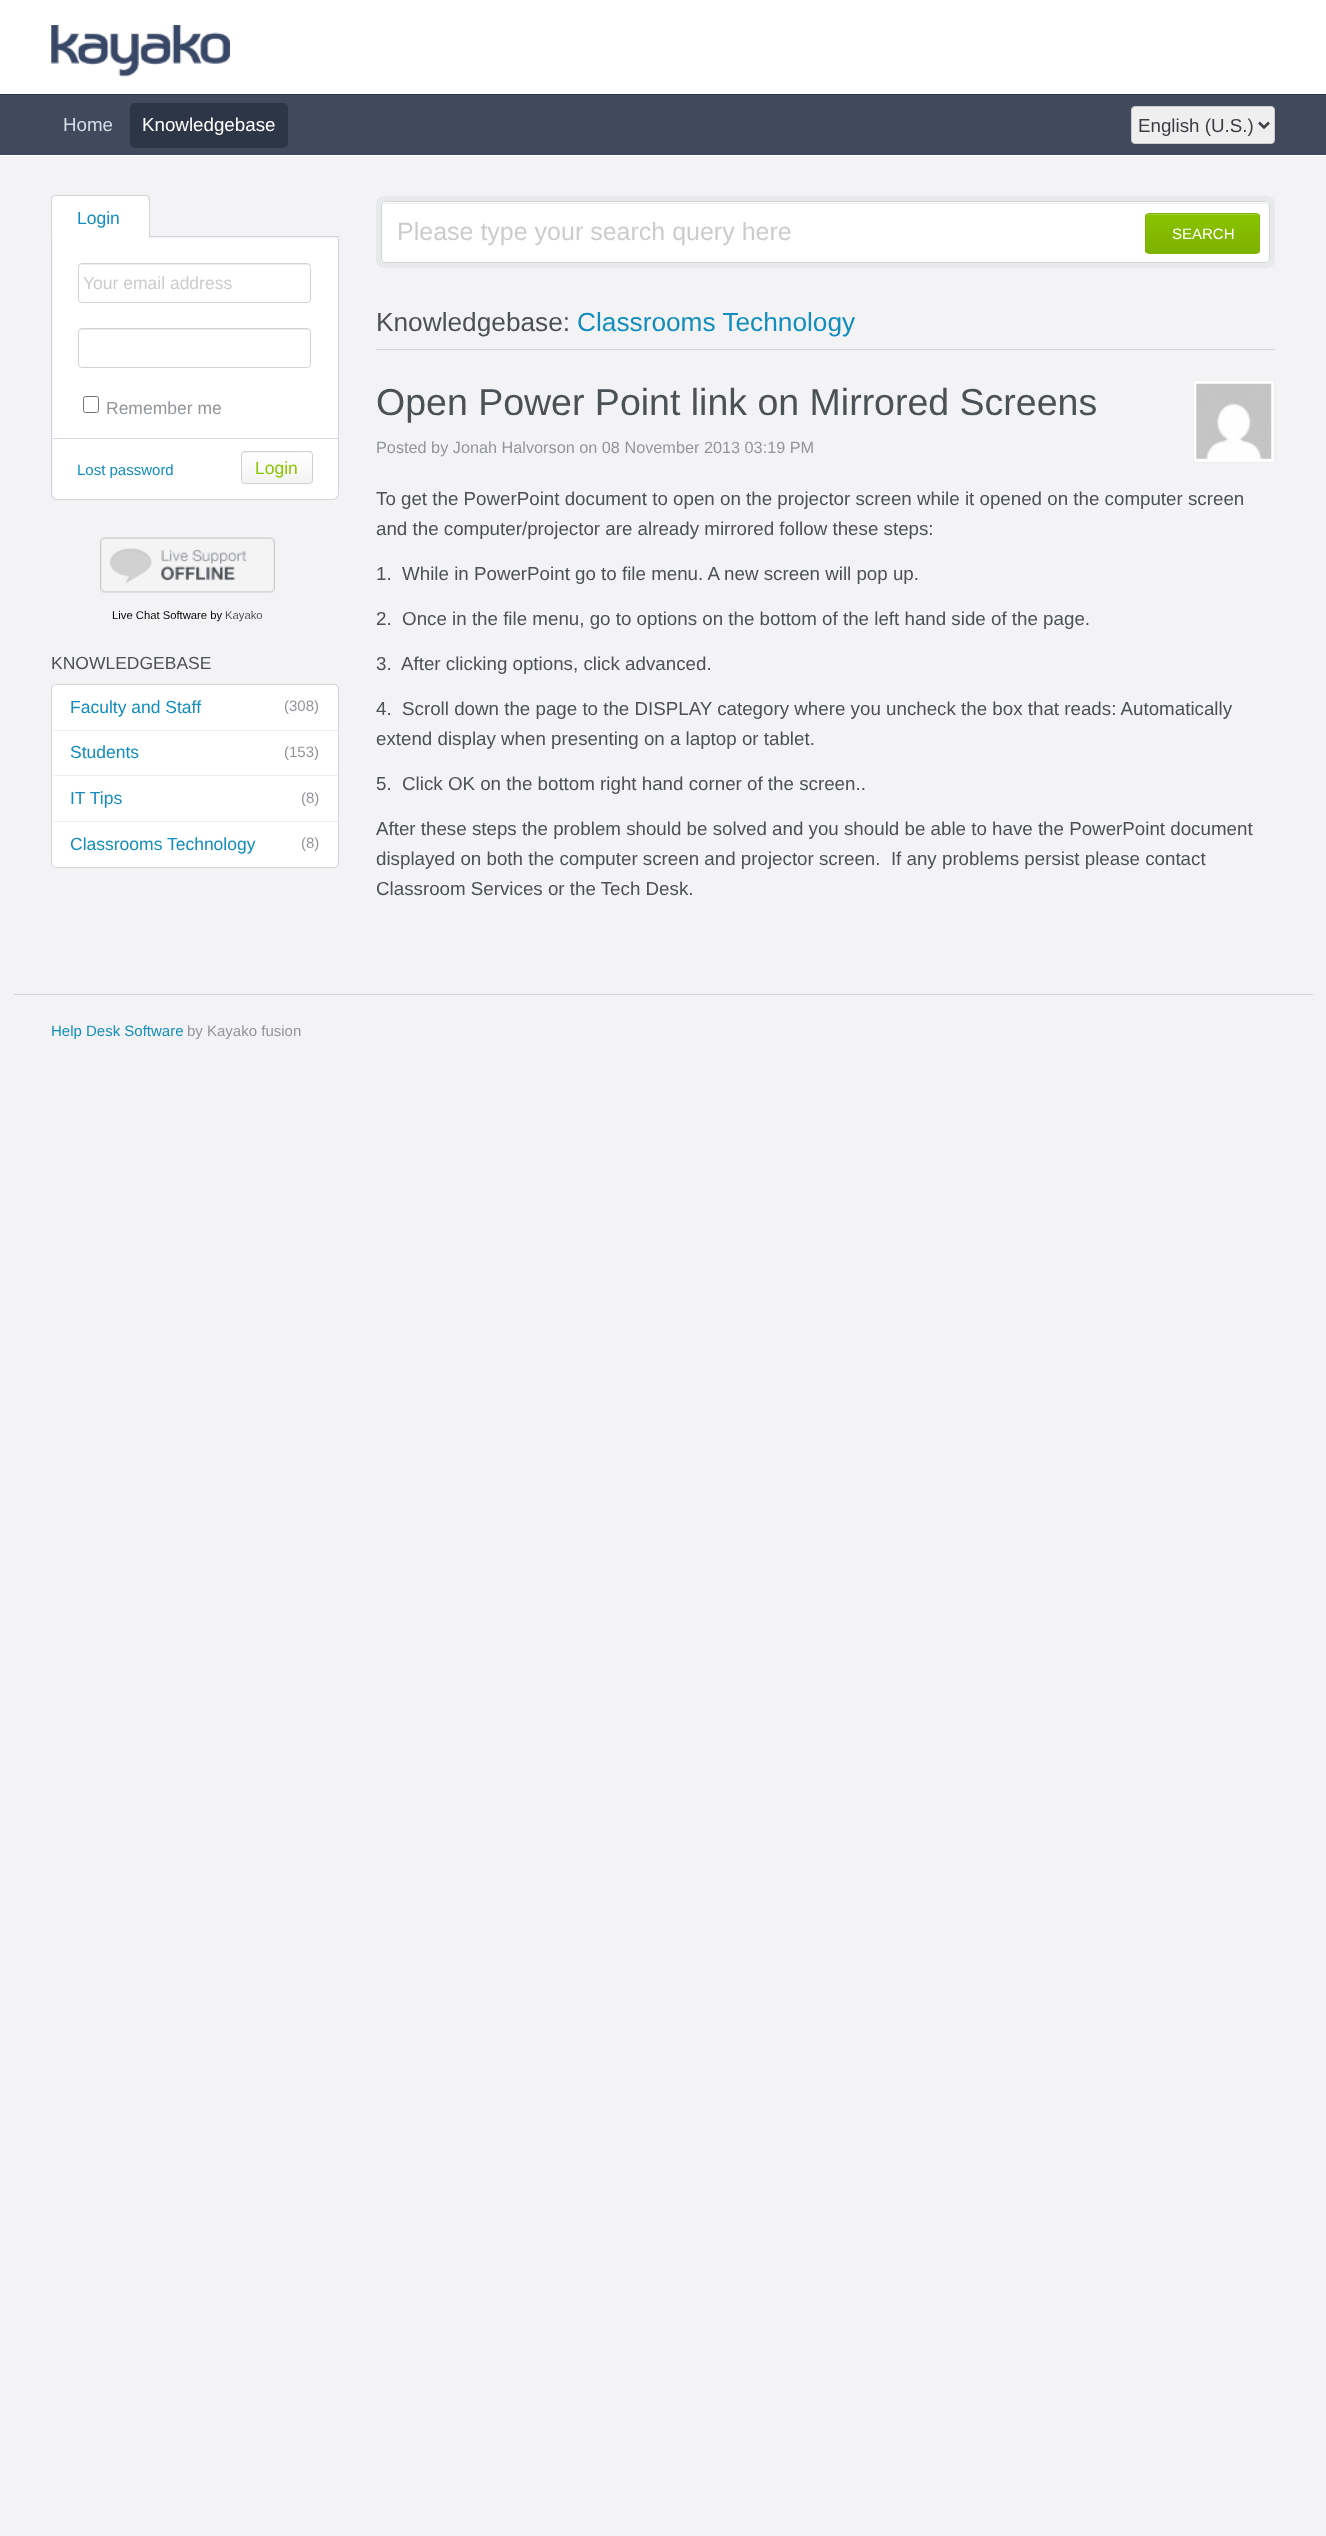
<!DOCTYPE html>
<meta charset="utf-8">
<style>body { margin: 0 } canvas { display: block }</style>
<canvas id="canvas" width="1326" height="2536"></canvas>
<script type="module">
  const canvas = document.getElementById("canvas");
  const ctx = canvas.getContext("2d");
  ctx.miterLimit = 4;
  ctx.fontKerning = "normal";
  async function loadImage(src) {
    const img = new Image();
    img.src = src;
    await img.decode();
    return img;
  }
  let gradient;

  ctx.fillStyle = "#f3f3f5";
  ctx.fillRect(0, 0, 1326, 2536);
  ctx.fillStyle = "#ffffff";
  ctx.fillRect(0, 0, 1326, 94);
  ctx.drawImage(await loadImage("img1.png"), 51, 25, 179, 52);
  ctx.fillStyle = "#414a5c";
  ctx.fillRect(0, 95, 1326, 60);
  ctx.fillStyle = "#2d3646";
  ctx.fillRect(0, 94, 1326, 1);
  ctx.fillStyle = "#ffffff";
  ctx.fillRect(0, 155, 1326, 1);
  ctx.font = "18.75px Liberation Sans";
  ctx.fillStyle = "#d4dee7";
  ctx.fillText("Home", 63, 131);
  ctx.fillStyle = "#2d3646";
  ctx.beginPath();
  ctx.roundRect(130, 103, 158, 45, 5);
  ctx.fill();
  ctx.fillStyle = "#ffffff";
  ctx.fillText("Knowledgebase", 142, 131);
  ctx.fillStyle = "#efefef";
  ctx.beginPath();
  ctx.roundRect(1131.5, 106.5, 143, 37, 3.5);
  ctx.fill();
  ctx.strokeStyle = "#cccccc";
  ctx.stroke();
  ctx.beginPath();
  ctx.moveTo(1259, 122.5);
  ctx.lineTo(1264, 127.5);
  ctx.lineTo(1269, 122.5);
  ctx.strokeStyle = "#3c3e43";
  ctx.lineWidth = 2.5;
  ctx.stroke();
  ctx.fillStyle = "#3c3e43";
  ctx.fillText("English (U.S.)", 1138, 132);
  ctx.fillStyle = "#cfd4d6";
  ctx.fillRect(150, 236, 189, 1);
  ctx.fillStyle = "#ffffff";
  ctx.beginPath();
  ctx.roundRect(51, 195, 99, 43, [4, 4, 0, 0]);
  ctx.fill();
  ctx.fillStyle = "#cfd4d6";
  ctx.beginPath();
  ctx.moveTo(55, 195);
  ctx.lineTo(52, 196);
  ctx.lineTo(53, 197);
  ctx.lineTo(55, 196);
  ctx.lineTo(146, 196);
  ctx.lineTo(148, 197);
  ctx.lineTo(149, 196);
  ctx.lineTo(146, 195);
  ctx.closePath();
  ctx.fill();
  ctx.beginPath();
  ctx.moveTo(150, 238);
  ctx.lineTo(150, 199);
  ctx.bezierCurveTo(150, 198, 150, 197, 149, 196);
  ctx.lineTo(148, 197);
  ctx.bezierCurveTo(150, 199, 149, 231, 149, 236);
  ctx.lineTo(148, 236);
  ctx.closePath();
  ctx.fill();
  ctx.fillStyle = "#ffffff";
  ctx.beginPath();
  ctx.moveTo(150, 238);
  ctx.lineTo(148, 236);
  ctx.lineTo(53, 236);
  ctx.lineTo(51, 238);
  ctx.closePath();
  ctx.fill();
  ctx.fillStyle = "#cfd4d6";
  ctx.beginPath();
  ctx.moveTo(51, 238);
  ctx.lineTo(51, 198);
  ctx.lineTo(52, 196);
  ctx.lineTo(53, 197);
  ctx.lineTo(52, 198);
  ctx.lineTo(52, 236);
  ctx.lineTo(53, 236);
  ctx.closePath();
  ctx.fill();
  ctx.font = "17.5px Liberation Sans";
  ctx.fillStyle = "#128dbe";
  ctx.fillText("Login", 77, 224);
  ctx.fillStyle = "#ffffff";
  ctx.beginPath();
  ctx.roundRect(53, 238, 285, 261, [0, 0, 5, 5]);
  ctx.fill();
  ctx.fillStyle = "#cfd4d6";
  ctx.beginPath();
  ctx.moveTo(51, 238);
  ctx.lineTo(339, 238);
  ctx.lineTo(339, 494);
  ctx.bezierCurveTo(339, 497, 336, 500, 332, 500);
  ctx.lineTo(58, 500);
  ctx.bezierCurveTo(54, 500, 51, 497, 51, 494);
  ctx.closePath();
  ctx.moveTo(52, 238);
  ctx.lineTo(338, 238);
  ctx.lineTo(338, 494);
  ctx.bezierCurveTo(338, 497, 335, 499, 332, 499);
  ctx.lineTo(58, 499);
  ctx.bezierCurveTo(55, 499, 52, 497, 52, 494);
  ctx.closePath();
  ctx.fill("evenodd");
  ctx.fillStyle = "#ececec";
  ctx.beginPath();
  ctx.moveTo(81, 265);
  ctx.lineTo(308, 265);
  ctx.bezierCurveTo(309, 265, 310, 266, 310, 268);
  ctx.bezierCurveTo(310, 266, 310, 264, 308, 264);
  ctx.lineTo(82, 264);
  ctx.bezierCurveTo(79, 264, 79, 266, 79, 268);
  ctx.bezierCurveTo(79, 266, 80, 265, 81, 265);
  ctx.closePath();
  ctx.fill();
  ctx.beginPath();
  ctx.roundRect(78.5, 263.5, 232, 39, 3.5);
  ctx.strokeStyle = "#cfd4d6";
  ctx.lineWidth = 1;
  ctx.stroke();
  ctx.fillStyle = "#cccccc";
  ctx.fillText("Your email address", 83, 289);
  ctx.fillStyle = "#ececec";
  ctx.beginPath();
  ctx.moveTo(81, 330);
  ctx.lineTo(308, 330);
  ctx.bezierCurveTo(309, 330, 310, 331, 310, 332);
  ctx.bezierCurveTo(310, 330, 309, 329, 308, 329);
  ctx.lineTo(82, 329);
  ctx.bezierCurveTo(80, 329, 79, 330, 79, 332);
  ctx.bezierCurveTo(79, 331, 80, 330, 81, 330);
  ctx.closePath();
  ctx.fill();
  ctx.beginPath();
  ctx.roundRect(78.5, 328.5, 232, 39, 3.5);
  ctx.stroke();
  ctx.beginPath();
  ctx.roundRect(83.5, 396.5, 15, 16, 2);
  ctx.strokeStyle = "#767676";
  ctx.stroke();
  ctx.fillStyle = "#92969b";
  ctx.fillText("Remember me", 106, 414);
  ctx.fillStyle = "#d8dbdf";
  ctx.fillRect(53, 438, 285, 1);
  ctx.font = "15px Liberation Sans";
  ctx.fillStyle = "#128dbe";
  ctx.fillText("Lost password", 77, 475);
  ctx.save();
  ctx.beginPath();
  ctx.roundRect(241, 451, 72, 33, 4);
  ctx.clip();
  gradient = ctx.createLinearGradient(243, 423, 243, 453);
  gradient.addColorStop(0, "#ffffff");
  gradient.addColorStop(1, "#f3f3f3");
  ctx.fillStyle = gradient;
  ctx.fillRect(241, 451, 72, 2);
  gradient = ctx.createLinearGradient(243, 453, 243, 483);
  gradient.addColorStop(0, "#ffffff");
  gradient.addColorStop(1, "#f3f3f3");
  ctx.fillStyle = gradient;
  ctx.fillRect(241, 453, 72, 30);
  ctx.restore();
  ctx.fillStyle = "#ffffff";
  ctx.beginPath();
  ctx.moveTo(245, 454);
  ctx.lineTo(310, 454);
  ctx.lineTo(311, 456);
  ctx.bezierCurveTo(311, 450, 300, 453, 298, 453);
  ctx.lineTo(245, 453);
  ctx.lineTo(243, 455);
  ctx.closePath();
  ctx.fill();
  ctx.beginPath();
  ctx.roundRect(241.5, 451.5, 71, 32, 3.5);
  ctx.strokeStyle = "#cdd2d4";
  ctx.stroke();
  ctx.font = "17.5px Liberation Sans";
  ctx.fillStyle = "#8ac500";
  ctx.fillText("Login", 255, 474);
  ctx.drawImage(await loadImage("img2.png"), 100, 537, 175, 56);
  ctx.font = "11.25px Liberation Sans";
  ctx.fillStyle = "#000000";
  ctx.fillText("Live Chat Software by", 112, 619);
  ctx.fillStyle = "#4c5156";
  ctx.fillText("Kayako", 225, 619);
  ctx.font = "17.5px Liberation Sans";
  ctx.fillText("KNOWLEDGEBASE", 51, 669);
  ctx.fillStyle = "#ffffff";
  ctx.beginPath();
  ctx.roundRect(51.5, 684.5, 287, 183, 4.5);
  ctx.fill();
  ctx.strokeStyle = "#cfd4d6";
  ctx.stroke();
  ctx.fillStyle = "#eeeeee";
  ctx.fillRect(53, 730, 285, 1);
  ctx.fillStyle = "#128dbe";
  ctx.fillText("Faculty and Staff", 70, 713);
  ctx.font = "15px Liberation Sans";
  ctx.fillStyle = "#92969b";
  ctx.fillText("(308)", 284, 711);
  ctx.fillStyle = "#eeeeee";
  ctx.fillRect(53, 775, 285, 1);
  ctx.font = "17.5px Liberation Sans";
  ctx.fillStyle = "#128dbe";
  ctx.fillText("Students", 70, 758);
  ctx.font = "15px Liberation Sans";
  ctx.fillStyle = "#92969b";
  ctx.fillText("(153)", 284, 757);
  ctx.fillStyle = "#eeeeee";
  ctx.fillRect(53, 821, 285, 1);
  ctx.font = "17.5px Liberation Sans";
  ctx.fillStyle = "#128dbe";
  ctx.fillText("IT Tips", 70, 804);
  ctx.font = "15px Liberation Sans";
  ctx.fillStyle = "#92969b";
  ctx.fillText("(8)", 301, 803);
  ctx.font = "17.5px Liberation Sans";
  ctx.fillStyle = "#128dbe";
  ctx.fillText("Classrooms Technology", 70, 850);
  ctx.font = "15px Liberation Sans";
  ctx.fillStyle = "#92969b";
  ctx.fillText("(8)", 301, 848);
  ctx.fillStyle = "#ffffff";
  ctx.beginPath();
  ctx.roundRect(378.5, 198.5, 894, 67, 5.5);
  ctx.fill();
  ctx.strokeStyle = "#e8e9eb";
  ctx.lineWidth = 5;
  ctx.stroke();
  ctx.fillStyle = "#ececec";
  ctx.beginPath();
  ctx.moveTo(385, 204);
  ctx.lineTo(1266, 204);
  ctx.bezierCurveTo(1268, 204, 1269, 205, 1269, 206);
  ctx.bezierCurveTo(1269, 204, 1268, 203, 1266, 203);
  ctx.lineTo(386, 203);
  ctx.bezierCurveTo(384, 203, 384, 204, 383, 205);
  ctx.closePath();
  ctx.fill();
  ctx.beginPath();
  ctx.roundRect(381.5, 201.5, 888, 61, 3.5);
  ctx.strokeStyle = "#cfd4d6";
  ctx.lineWidth = 1;
  ctx.stroke();
  ctx.font = "25px Liberation Sans";
  ctx.fillStyle = "#cccccc";
  ctx.fillText("Please type your search query here", 397, 240);
  ctx.save();
  ctx.beginPath();
  ctx.roundRect(1145, 213, 115, 41, 4);
  ctx.clip();
  gradient = ctx.createLinearGradient(1146, 214, 1146, 253);
  gradient.addColorStop(0, "#8ac400");
  gradient.addColorStop(1, "#7db100");
  ctx.fillStyle = gradient;
  ctx.fillRect(1145, 214, 115, 39);
  ctx.restore();
  ctx.fillStyle = "#a1d033";
  ctx.beginPath();
  ctx.moveTo(1149, 215);
  ctx.lineTo(1256, 215);
  ctx.bezierCurveTo(1258, 215, 1259, 216, 1259, 218);
  ctx.lineTo(1259, 216);
  ctx.bezierCurveTo(1259, 215, 1258, 214, 1256, 214);
  ctx.lineTo(1148, 214);
  ctx.bezierCurveTo(1147, 214, 1146, 215, 1146, 216);
  ctx.lineTo(1146, 218);
  ctx.bezierCurveTo(1146, 216, 1147, 215, 1149, 215);
  ctx.closePath();
  ctx.fill();
  ctx.beginPath();
  ctx.roundRect(1145.5, 213.5, 114, 40, 3.5);
  ctx.strokeStyle = "#80b506";
  ctx.stroke();
  ctx.font = "15px Liberation Sans";
  ctx.fillStyle = "#ffffff";
  ctx.fillText("SEARCH", 1172, 239);
  ctx.fillStyle = "#cfd4d6";
  ctx.fillRect(376, 349, 899, 1);
  ctx.font = "26.25px Liberation Sans";
  ctx.fillStyle = "#4c5156";
  ctx.fillText("Knowledgebase:", 376, 331);
  ctx.fillStyle = "#128dbe";
  ctx.fillText("Classrooms Technology", 577, 331);
  ctx.font = "37.5px Liberation Sans";
  ctx.fillStyle = "#4c5156";
  ctx.fillText("Open Power Point link on Mirrored Screens", 376, 415);
  ctx.fillStyle = "#ffffff";
  ctx.beginPath();
  ctx.rect(1193.5, 380.5, 81, 82);
  ctx.fill();
  ctx.strokeStyle = "#eeeeee";
  ctx.stroke();
  ctx.drawImage(await loadImage("img3.png"), 1196, 383, 76, 76);
  ctx.font = "16.25px Liberation Sans";
  ctx.fillStyle = "#92969b";
  ctx.fillText("Posted by Jonah Halvorson on 08 November 2013 03:19 PM", 376, 453);
  ctx.font = "18.75px Liberation Sans";
  ctx.fillStyle = "#4c5156";
  ctx.fillText("To get the PowerPoint document to open on the projector screen while it opened on the computer screen", 376, 505);
  ctx.fillText("and the computer/projector are already mirrored follow these steps:", 376, 535);
  ctx.fillText("1.  While in PowerPoint go to file menu. A new screen will pop up.", 376, 580);
  ctx.fillText("2.  Once in the file menu, go to options on the bottom of the left hand side of the page.", 376, 625);
  ctx.fillText("3.  After clicking options, click advanced.", 376, 670);
  ctx.fillText("4.  Scroll down the page to the DISPLAY category where you uncheck the box that reads: Automatically", 376, 715);
  ctx.fillText("extend display when presenting on a laptop or tablet.", 376, 745);
  ctx.fillText("5.  Click OK on the bottom right hand corner of the screen..", 376, 790);
  ctx.fillText("After these steps the problem should be solved and you should be able to have the PowerPoint document", 376, 835);
  ctx.fillText("displayed on both the computer screen and projector screen.  If any problems persist please contact", 376, 865);
  ctx.fillText("Classroom Services or the Tech Desk.", 376, 895);
  ctx.fillStyle = "#cfd4d6";
  ctx.fillRect(14, 994, 1299, 1);
  ctx.font = "15px Liberation Sans";
  ctx.fillStyle = "#128dbe";
  ctx.fillText("Help Desk Software", 51, 1036);
  ctx.fillStyle = "#92969b";
  ctx.fillText("by Kayako fusion", 187, 1036);
</script>
